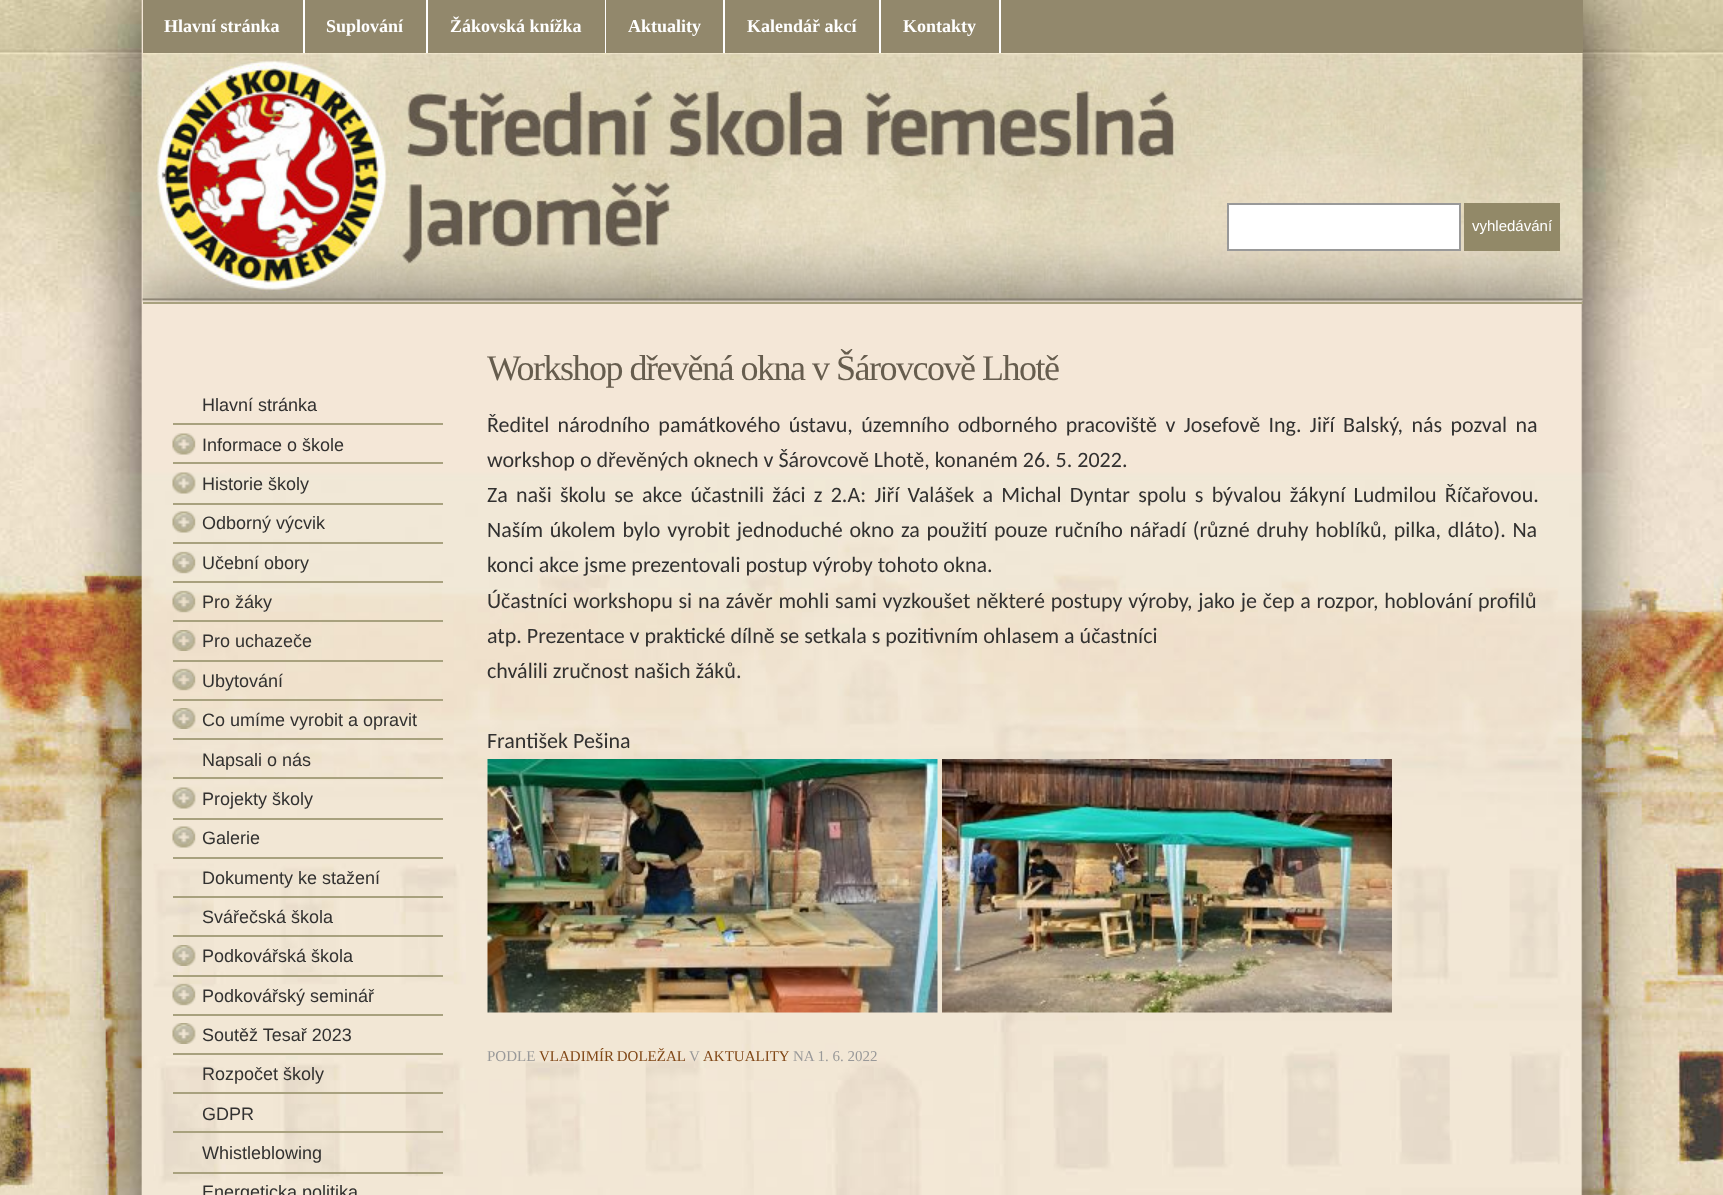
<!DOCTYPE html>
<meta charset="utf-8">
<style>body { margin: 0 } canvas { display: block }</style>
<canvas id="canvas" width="1723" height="1195"></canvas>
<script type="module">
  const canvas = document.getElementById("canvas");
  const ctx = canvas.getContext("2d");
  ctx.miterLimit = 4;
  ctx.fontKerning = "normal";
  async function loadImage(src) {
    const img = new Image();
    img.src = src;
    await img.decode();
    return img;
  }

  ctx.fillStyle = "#ffffff";
  ctx.fillRect(0, 0, 1723, 1195);
  ctx.drawImage(await loadImage("img1.png"), 0, 0, 1723, 1195);
  ctx.drawImage(await loadImage("img2.png"), 142, 52, 1441, 250);
  ctx.fillStyle = "#92886c";
  ctx.fillRect(143, 0, 1440, 53);
  ctx.fillStyle = "#ffffff";
  ctx.fillRect(303, 0, 2, 53);
  ctx.font = "bold 18px Liberation Serif";
  ctx.fillText("Hlavní stránka", 164, 32);
  ctx.fillRect(426, 0, 2, 53);
  ctx.fillText("Suplování", 326, 32);
  ctx.fillRect(605, 0, 1, 53);
  ctx.fillText("Žákovská knížka", 450, 32);
  ctx.fillRect(723, 0, 2, 53);
  ctx.fillText("Aktuality", 628, 32);
  ctx.fillRect(879, 0, 2, 53);
  ctx.fillText("Kalendář akcí", 747, 32);
  ctx.fillRect(999, 0, 2, 53);
  ctx.fillText("Kontakty", 903, 32);
  ctx.beginPath();
  ctx.rect(1228, 204, 232, 46);
  ctx.fill();
  ctx.strokeStyle = "#999999";
  ctx.lineWidth = 2;
  ctx.stroke();
  ctx.fillStyle = "#928968";
  ctx.fillRect(1464, 203, 96, 48);
  ctx.font = "15px Liberation Sans";
  ctx.fillStyle = "#ffffff";
  ctx.fillText("vyhledávání", 1472, 231);
  ctx.fillStyle = "#a8a17e";
  ctx.fillRect(143, 302, 1440, 2);
  ctx.letterSpacing = "-1.5px";
  ctx.font = "36px Liberation Serif";
  ctx.fillStyle = "#665d4e";
  ctx.fillText("Workshop dřevěná okna v Šárovcově Lhotě", 487, 380);
  ctx.fillStyle = "#a8a17e";
  ctx.fillRect(173, 423, 270, 2);
  ctx.letterSpacing = "0px";
  ctx.font = "18px Arimo";
  ctx.fillStyle = "#323130";
  ctx.fillText("Hlavní stránka", 202, 411);
  ctx.drawImage(await loadImage("img3.png"), 172, 433, 24, 22);
  ctx.fillStyle = "#a8a17e";
  ctx.fillRect(173, 462, 270, 2);
  ctx.fillStyle = "#323130";
  ctx.fillText("Informace o škole", 202, 451);
  ctx.drawImage(await loadImage("img4.png"), 172, 472, 24, 22);
  ctx.fillStyle = "#a8a17e";
  ctx.fillRect(173, 503, 270, 2);
  ctx.fillStyle = "#323130";
  ctx.fillText("Historie školy", 202, 490);
  ctx.drawImage(await loadImage("img5.png"), 172, 511, 24, 22);
  ctx.fillStyle = "#a8a17e";
  ctx.fillRect(173, 542, 270, 2);
  ctx.fillStyle = "#323130";
  ctx.fillText("Odborný výcvik", 202, 529);
  ctx.drawImage(await loadImage("img6.png"), 172, 551, 24, 23);
  ctx.fillStyle = "#a8a17e";
  ctx.fillRect(173, 581, 270, 2);
  ctx.fillStyle = "#323130";
  ctx.fillText("Učební obory", 202, 569);
  ctx.drawImage(await loadImage("img7.png"), 172, 590, 24, 23);
  ctx.fillStyle = "#a8a17e";
  ctx.fillRect(173, 620, 270, 2);
  ctx.fillStyle = "#323130";
  ctx.fillText("Pro žáky", 202, 608);
  ctx.drawImage(await loadImage("img8.png"), 172, 630, 24, 21);
  ctx.fillStyle = "#a8a17e";
  ctx.fillRect(173, 660, 270, 2);
  ctx.fillStyle = "#323130";
  ctx.fillText("Pro uchazeče", 202, 647);
  ctx.drawImage(await loadImage("img9.png"), 172, 668, 24, 23);
  ctx.fillStyle = "#a8a17e";
  ctx.fillRect(173, 699, 270, 2);
  ctx.fillStyle = "#323130";
  ctx.fillText("Ubytování", 202, 687);
  ctx.drawImage(await loadImage("img10.png"), 172, 708, 24, 21);
  ctx.fillStyle = "#a8a17e";
  ctx.fillRect(173, 738, 270, 2);
  ctx.fillStyle = "#323130";
  ctx.fillText("Co umíme vyrobit a opravit", 202, 726);
  ctx.fillStyle = "#a8a17e";
  ctx.fillRect(173, 777, 270, 2);
  ctx.fillStyle = "#323130";
  ctx.fillText("Napsali o nás", 202, 766);
  ctx.drawImage(await loadImage("img11.png"), 172, 787, 24, 22);
  ctx.fillStyle = "#a8a17e";
  ctx.fillRect(173, 818, 270, 2);
  ctx.fillStyle = "#323130";
  ctx.fillText("Projekty školy", 202, 805);
  ctx.drawImage(await loadImage("img12.png"), 172, 826, 24, 22);
  ctx.fillStyle = "#a8a17e";
  ctx.fillRect(173, 857, 270, 2);
  ctx.fillStyle = "#323130";
  ctx.fillText("Galerie", 202, 844);
  ctx.fillStyle = "#a8a17e";
  ctx.fillRect(173, 896, 270, 2);
  ctx.fillStyle = "#323130";
  ctx.fillText("Dokumenty ke stažení", 202, 884);
  ctx.fillStyle = "#a8a17e";
  ctx.fillRect(173, 935, 270, 2);
  ctx.fillStyle = "#323130";
  ctx.fillText("Svářečská škola", 202, 923);
  ctx.drawImage(await loadImage("img13.png"), 172, 945, 24, 21);
  ctx.fillStyle = "#a8a17e";
  ctx.fillRect(173, 975, 270, 2);
  ctx.fillStyle = "#323130";
  ctx.fillText("Podkovářská škola", 202, 962);
  ctx.drawImage(await loadImage("img14.png"), 172, 983, 24, 23);
  ctx.fillStyle = "#a8a17e";
  ctx.fillRect(173, 1014, 270, 2);
  ctx.fillStyle = "#323130";
  ctx.fillText("Podkovářský seminář", 202, 1002);
  ctx.drawImage(await loadImage("img15.png"), 172, 1023, 24, 21);
  ctx.fillStyle = "#a8a17e";
  ctx.fillRect(173, 1053, 270, 2);
  ctx.fillStyle = "#323130";
  ctx.fillText("Soutěž Tesař 2023", 202, 1041);
  ctx.fillStyle = "#a8a17e";
  ctx.fillRect(173, 1092, 270, 2);
  ctx.fillStyle = "#323130";
  ctx.fillText("Rozpočet školy", 202, 1080);
  ctx.fillStyle = "#a8a17e";
  ctx.fillRect(173, 1131, 270, 2);
  ctx.fillStyle = "#323130";
  ctx.fillText("GDPR", 202, 1120);
  ctx.fillStyle = "#a8a17e";
  ctx.fillRect(173, 1172, 270, 2);
  ctx.fillStyle = "#323130";
  ctx.fillText("Whistleblowing", 202, 1159);
  ctx.fillText("Energeticka politika", 202, 1198);
  ctx.wordSpacing = "3.4px";
  ctx.font = "22px Carlito";
  ctx.fillText("Ředitel národního památkového ústavu, územního odborného pracoviště v Josefově Ing. Jiří Balský, nás pozval na", 487, 432);
  ctx.wordSpacing = "0px";
  ctx.fillText("workshop o dřevěných oknech v Šárovcově Lhotě, konaném 26. 5. 2022.", 487, 467);
  ctx.wordSpacing = "3.25px";
  ctx.fillText("Za naši školu se akce účastnili žáci z 2.A: Jiří Valášek a Michal Dyntar spolu s bývalou žákyní Ludmilou Říčařovou.", 487, 502);
  ctx.wordSpacing = "1.75px";
  ctx.fillText("Naším úkolem bylo vyrobit jednoduché okno za použití pouze ručního nářadí (různé druhy hoblíků, pilka, dláto). Na", 487, 537);
  ctx.wordSpacing = "0px";
  ctx.fillText("konci akce jsme prezentovali postup výroby tohoto okna.", 487, 572);
  ctx.wordSpacing = "0.8px";
  ctx.fillText("Účastníci workshopu si na závěr mohli sami vyzkoušet některé postupy výroby, jako je čep a rozpor, hoblování profilů", 487, 608);
  ctx.wordSpacing = "0px";
  ctx.fillText("atp. Prezentace v praktické dílně se setkala s pozitivním ohlasem a účastníci", 487, 643);
  ctx.fillText("chválili zručnost našich žáků.", 487, 678);
  ctx.fillText("František Pešina", 487, 748);
  ctx.drawImage(await loadImage("img16.png"), 487, 759, 451, 254);
  ctx.drawImage(await loadImage("img17.png"), 942, 759, 450, 254);
  ctx.font = "15px Liberation Serif";
  ctx.fillStyle = "#999999";
  ctx.fillText("PODLE", 487, 1061);
  ctx.wordSpacing = "-1px";
  ctx.fillStyle = "#804716";
  ctx.fillText("VLADIMÍR DOLEŽAL", 539, 1061);
  ctx.wordSpacing = "0px";
  ctx.fillStyle = "#999999";
  ctx.fillText("V", 689, 1061);
  ctx.fillStyle = "#804716";
  ctx.fillText("AKTUALITY", 703, 1061);
  ctx.fillStyle = "#999999";
  ctx.fillText("NA 1. 6. 2022", 793, 1061);
</script>
